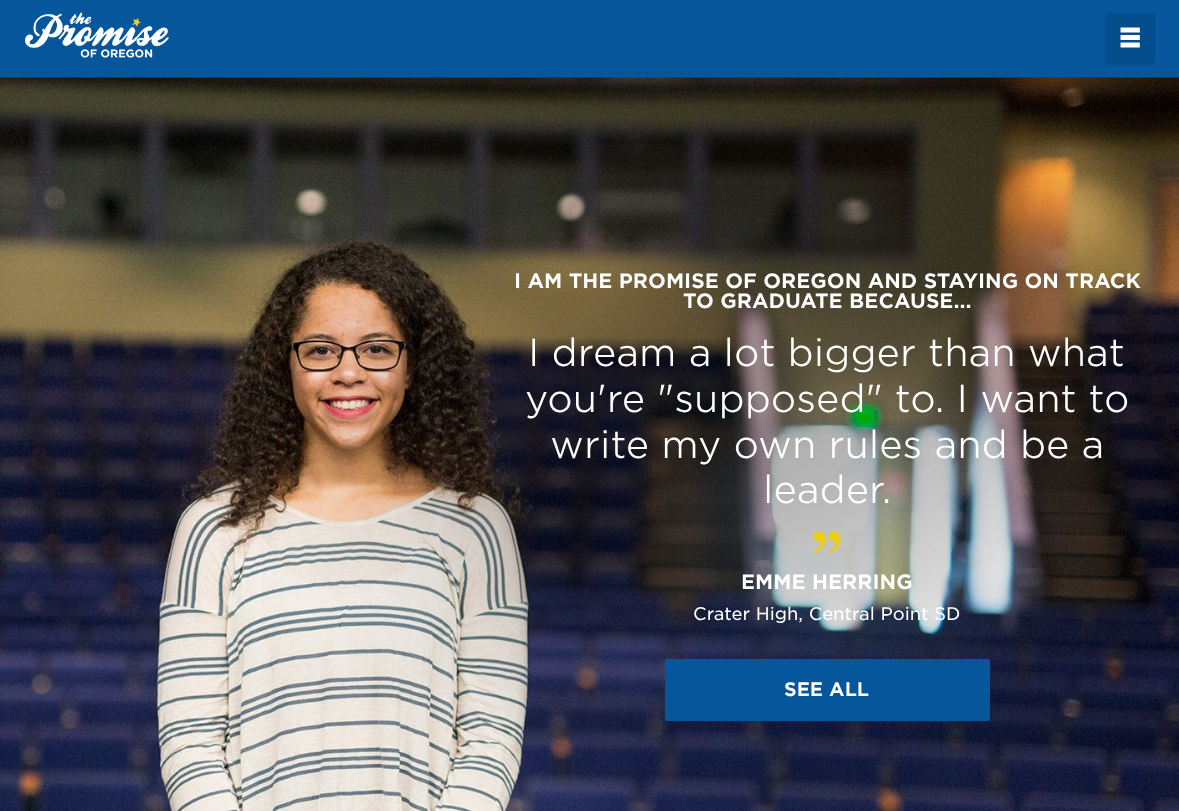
<!DOCTYPE html>
<meta charset="utf-8">
<style>body { margin: 0 } canvas { display: block }</style>
<canvas id="canvas" width="1179" height="811"></canvas>
<script type="module">
  const canvas = document.getElementById("canvas");
  const ctx = canvas.getContext("2d");
  ctx.miterLimit = 4;
  ctx.fontKerning = "normal";
  async function loadImage(src) {
    const img = new Image();
    img.src = src;
    await img.decode();
    return img;
  }

  ctx.fillStyle = "#06569b";
  ctx.fillRect(0, 0, 1179, 811);
  ctx.drawImage(await loadImage("img1.png"), 25, 12, 144, 46);
  ctx.fillStyle = "#054e8d";
  ctx.beginPath();
  ctx.roundRect(1105, 13, 50, 52, 2.5);
  ctx.fill();
  ctx.drawImage(await loadImage("img2.png"), 1120, 27, 20, 21);
  ctx.drawImage(await loadImage("img3.png"), 0, 77, 1179, 734);
  ctx.drawImage(await loadImage("img4.png"), 262, 96, 917, 708);
  ctx.font = "20px 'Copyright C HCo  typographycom'";
  ctx.fillStyle = "#ffffff";
  ctx.fillText("I AM THE PROMISE OF OREGON AND STAYING ON TRACK", 514, 288);
  ctx.fillText("TO GRADUATE BECAUSE...", 683, 308);
  ctx.font = "300 37.5px 'Copyright C HCo  typographycom'";
  ctx.fillText("I dream a lot bigger than what", 528, 366);
  ctx.fillText("you're \"supposed\" to. I want to", 525, 412);
  ctx.fillText("write my own rules and be a", 550, 458);
  ctx.fillText("leader.", 763, 503);
  ctx.drawImage(await loadImage("img5.png"), 812, 531, 30, 23);
  ctx.font = "20px 'Copyright C HCo  typographycom'";
  ctx.fillText("EMME HERRING", 741, 589);
  ctx.font = "300 17.5px 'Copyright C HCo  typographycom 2'";
  ctx.fillText("Crater High, Central Point SD", 693, 620);
  ctx.fillStyle = "#06569b";
  ctx.beginPath();
  ctx.roundRect(665, 659, 325, 62, 2.5);
  ctx.fill();
  ctx.font = "18.75px 'Copyright C HCo  typographycom'";
  ctx.fillStyle = "#ffffff";
  ctx.fillText("SEE ALL", 784, 696);
</script>
